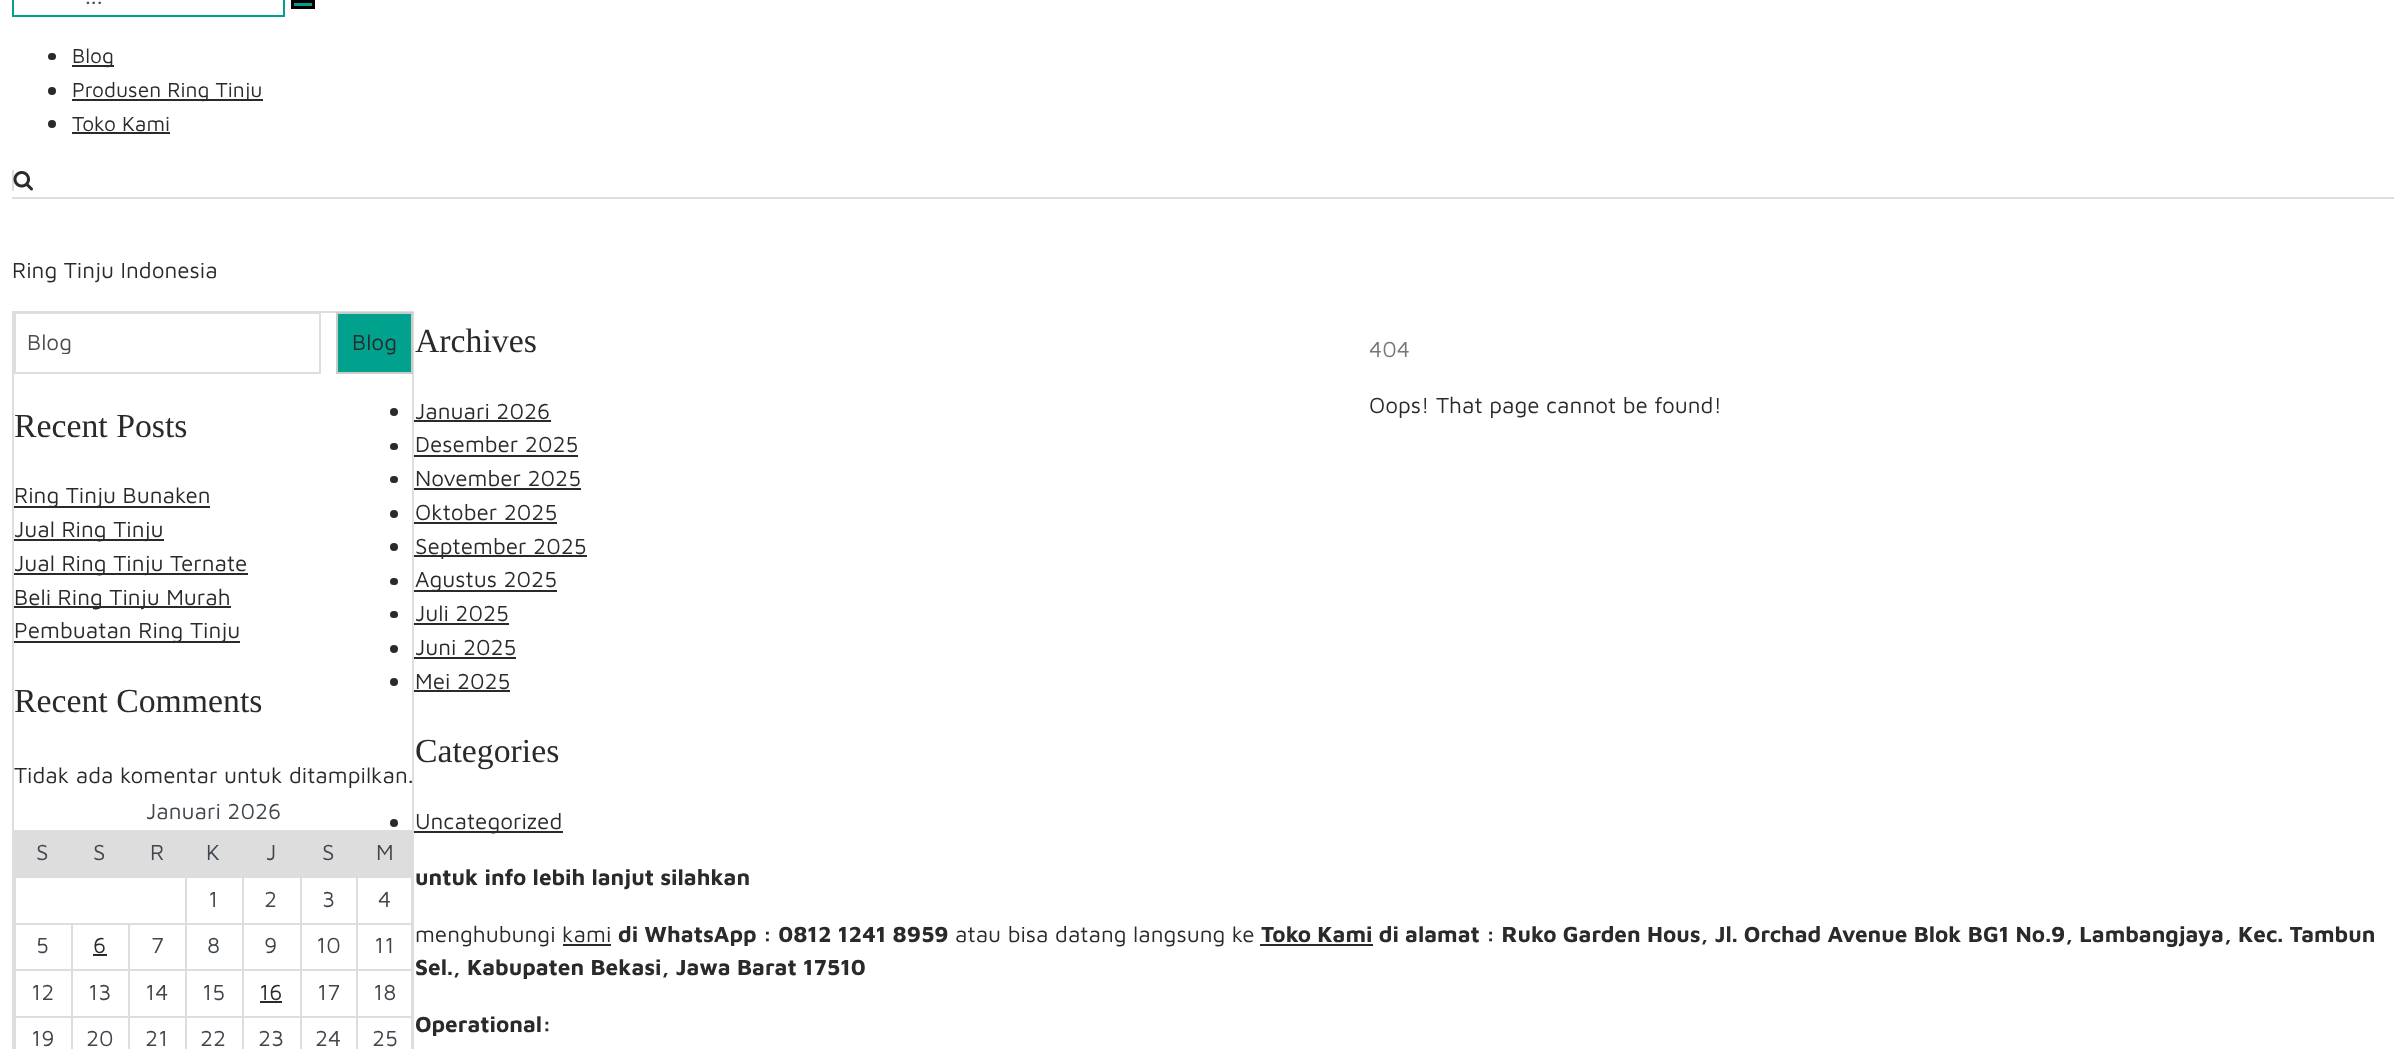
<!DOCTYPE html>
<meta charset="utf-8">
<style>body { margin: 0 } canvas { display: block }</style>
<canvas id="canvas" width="2406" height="1049"></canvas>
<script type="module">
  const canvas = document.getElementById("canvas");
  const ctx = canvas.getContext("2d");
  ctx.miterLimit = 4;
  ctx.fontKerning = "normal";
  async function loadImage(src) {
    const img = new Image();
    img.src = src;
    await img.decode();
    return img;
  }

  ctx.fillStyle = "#ffffff";
  ctx.fillRect(0, 0, 2406, 1049);
  ctx.strokeStyle = "#00a28d";
  ctx.lineWidth = 2;
  ctx.strokeRect(13, -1, 271, 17);
  ctx.font = "22.5px Maven Pro";
  ctx.fillStyle = "#4d4d4d";
  ctx.fillText("...", 85, 4);
  ctx.fillStyle = "#00a28d";
  ctx.beginPath();
  ctx.rect(292.5, 1.5, 21, 6);
  ctx.fill();
  ctx.strokeStyle = "#000000";
  ctx.lineWidth = 3;
  ctx.stroke();
  ctx.fillStyle = "#dedede";
  ctx.fillRect(12, 197, 2382, 2);
  ctx.fillStyle = "#2a2a2a";
  ctx.beginPath();
  ctx.roundRect(48, 53, 8, 7, 3.5);
  ctx.fill();
  ctx.fillRect(72, 65, 42, 2);
  ctx.font = "21px Maven Pro";
  ctx.fillText("Blog", 72, 63);
  ctx.beginPath();
  ctx.arc(52, 91, 4, 0, Math.PI * 2);
  ctx.fill();
  ctx.fillRect(72, 99, 191, 2);
  ctx.fillText("Produsen Ring Tinju", 72, 97);
  ctx.beginPath();
  ctx.arc(52, 124, 4, 0, Math.PI * 2);
  ctx.fill();
  ctx.fillText("Toko Kami", 72, 131);
  ctx.fillRect(72, 132, 98, 2);
  ctx.fillStyle = "#dedede";
  ctx.fillRect(12, 170, 2, 21);
  ctx.drawImage(await loadImage("img1.png"), 13, 171, 20, 20);
  ctx.font = "22.5px Maven Pro";
  ctx.fillStyle = "#2a2a2a";
  ctx.fillText("Ring Tinju Indonesia", 12, 278);
  ctx.font = "33.75px Liberation Serif";
  ctx.fillText("Archives", 415, 352);
  ctx.strokeStyle = "#dedede";
  ctx.lineWidth = 2;
  ctx.strokeRect(13, 312, 400, 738);
  ctx.beginPath();
  ctx.arc(394, 412, 4, 0, Math.PI * 2);
  ctx.fill();
  ctx.font = "22.5px Maven Pro";
  ctx.fillText("Januari 2026", 415, 419);
  ctx.fillRect(414, 420, 137, 2);
  ctx.beginPath();
  ctx.roundRect(390, 443, 8, 7, 3.5);
  ctx.fill();
  ctx.fillText("Desember 2025", 415, 452);
  ctx.fillRect(414, 455, 164, 2);
  ctx.beginPath();
  ctx.roundRect(390, 476, 8, 7, 3.5);
  ctx.fill();
  ctx.fillText("November 2025", 415, 486);
  ctx.fillRect(414, 488, 167, 2);
  ctx.beginPath();
  ctx.arc(394, 514, 4, 0, Math.PI * 2);
  ctx.fill();
  ctx.fillText("Oktober 2025", 415, 520);
  ctx.fillRect(414, 522, 143, 2);
  ctx.beginPath();
  ctx.arc(394, 547, 4, 0, Math.PI * 2);
  ctx.fill();
  ctx.fillRect(414, 555, 173, 2);
  ctx.fillText("September 2025", 415, 554);
  ctx.beginPath();
  ctx.roundRect(390, 578, 8, 7, 3.5);
  ctx.fill();
  ctx.fillRect(414, 590, 143, 2);
  ctx.fillText("Agustus 2025", 415, 587);
  ctx.beginPath();
  ctx.roundRect(390, 611, 8, 7, 3.5);
  ctx.fill();
  ctx.fillText("Juli 2025", 415, 621);
  ctx.fillRect(414, 623, 95, 2);
  ctx.beginPath();
  ctx.arc(394, 649, 4, 0, Math.PI * 2);
  ctx.fill();
  ctx.fillText("Juni 2025", 415, 655);
  ctx.fillRect(414, 657, 102, 2);
  ctx.beginPath();
  ctx.arc(394, 682, 4, 0, Math.PI * 2);
  ctx.fill();
  ctx.fillText("Mei 2025", 415, 689);
  ctx.fillRect(414, 690, 96, 2);
  ctx.font = "33.75px Liberation Serif";
  ctx.fillText("Categories", 415, 762);
  ctx.beginPath();
  ctx.arc(394, 823, 4, 0, Math.PI * 2);
  ctx.fill();
  ctx.fillRect(414, 831, 149, 2);
  ctx.font = "22.5px Maven Pro";
  ctx.fillText("Uncategorized", 415, 829);
  ctx.font = "bold 22.5px Maven Pro";
  ctx.fillText("untuk info lebih lanjut silahkan", 415, 885);
  ctx.font = "22.5px Maven Pro";
  ctx.fillText("menghubungi kami", 415, 942);
  ctx.font = "bold 22.5px Maven Pro";
  ctx.fillText("di WhatsApp : 0812 1241 8959", 618, 942);
  ctx.font = "22.5px Maven Pro";
  ctx.fillText("atau bisa datang langsung ke", 955, 942);
  ctx.fillRect(1260, 944, 113, 2);
  ctx.font = "bold 22.5px Maven Pro";
  ctx.fillText("Toko Kami di alamat : Ruko Garden Hous, Jl. Orchad Avenue Blok BG1 No.9, Lambangjaya, Kec. Tambun", 1261, 942);
  ctx.fillRect(563, 944, 48, 2);
  ctx.fillText("Sel., Kabupaten Bekasi, Jawa Barat 17510", 415, 975);
  ctx.fillText("Operational:", 415, 1032);
  ctx.strokeRect(15, 313, 305, 60);
  ctx.save();
  ctx.beginPath();
  ctx.rect(27, 329, 260, 25);
  ctx.clip();
  ctx.font = "22.5px Maven Pro";
  ctx.fillStyle = "#4d4d4d";
  ctx.fillText("Blog", 27, 350);
  ctx.restore();
  ctx.fillStyle = "#00a28d";
  ctx.beginPath();
  ctx.rect(337, 313, 75, 60);
  ctx.fill();
  ctx.strokeStyle = "#cccccc";
  ctx.stroke();
  ctx.font = "22.5px Maven Pro";
  ctx.fillStyle = "#2a2a2a";
  ctx.fillText("Blog", 352, 350);
  ctx.font = "33.75px Liberation Serif";
  ctx.fillText("Recent Posts", 14, 437);
  ctx.fillRect(14, 506, 196, 2);
  ctx.font = "22.5px Maven Pro";
  ctx.fillText("Ring Tinju Bunaken", 14, 503);
  ctx.fillRect(14, 539, 150, 2);
  ctx.fillText("Jual Ring Tinju", 14, 537);
  ctx.fillRect(14, 573, 234, 2);
  ctx.fillText("Jual Ring Tinju Ternate", 14, 571);
  ctx.fillRect(14, 606, 217, 2);
  ctx.fillText("Beli Ring Tinju Murah", 14, 605);
  ctx.fillRect(14, 641, 226, 2);
  ctx.fillText("Pembuatan Ring Tinju", 14, 638);
  ctx.font = "33.75px Liberation Serif";
  ctx.fillText("Recent Comments", 14, 712);
  ctx.font = "22.5px Maven Pro";
  ctx.fillText("Tidak ada komentar untuk ditampilkan.", 14, 783);
  ctx.fillStyle = "#40464d";
  ctx.fillText("Januari 2026", 146, 819);
  ctx.fillStyle = "#dddddd";
  ctx.fillRect(16, 832, 55, 44);
  ctx.fillRect(71, 830, 341, 46);
  ctx.fillRect(14, 830, 58, 2);
  ctx.fillRect(356, 876, 57, 2);
  ctx.fillRect(356, 923, 57, 2);
  ctx.fillRect(356, 969, 57, 2);
  ctx.fillRect(356, 1016, 57, 2);
  ctx.fillRect(356, 1016, 2, 33);
  ctx.fillRect(300, 1016, 57, 2);
  ctx.fillRect(356, 969, 2, 48);
  ctx.fillRect(300, 969, 57, 2);
  ctx.fillRect(356, 923, 2, 48);
  ctx.fillRect(300, 923, 57, 2);
  ctx.fillRect(356, 876, 2, 48);
  ctx.fillRect(300, 876, 57, 2);
  ctx.fillRect(300, 1016, 2, 33);
  ctx.fillRect(242, 1016, 60, 2);
  ctx.fillRect(300, 969, 2, 48);
  ctx.fillRect(242, 969, 60, 2);
  ctx.fillRect(300, 923, 2, 48);
  ctx.fillRect(242, 923, 60, 2);
  ctx.fillRect(300, 876, 2, 48);
  ctx.fillRect(242, 876, 60, 2);
  ctx.fillRect(242, 1016, 2, 33);
  ctx.fillRect(185, 1016, 58, 2);
  ctx.fillRect(242, 969, 2, 48);
  ctx.fillRect(185, 969, 58, 2);
  ctx.fillRect(242, 923, 2, 48);
  ctx.fillRect(185, 923, 58, 2);
  ctx.fillRect(242, 876, 2, 48);
  ctx.fillRect(185, 876, 58, 2);
  ctx.fillRect(185, 1016, 2, 33);
  ctx.fillRect(128, 1016, 58, 2);
  ctx.fillRect(185, 969, 2, 48);
  ctx.fillRect(128, 969, 58, 2);
  ctx.fillRect(185, 923, 2, 48);
  ctx.fillRect(128, 923, 58, 2);
  ctx.fillRect(185, 876, 2, 48);
  ctx.fillRect(14, 876, 172, 2);
  ctx.fillRect(128, 1016, 2, 33);
  ctx.fillRect(71, 1016, 58, 2);
  ctx.fillRect(128, 969, 2, 48);
  ctx.fillRect(71, 969, 58, 2);
  ctx.fillRect(128, 923, 2, 48);
  ctx.fillRect(71, 923, 58, 2);
  ctx.fillRect(71, 1016, 2, 33);
  ctx.fillRect(14, 1016, 58, 2);
  ctx.fillRect(71, 969, 2, 48);
  ctx.fillRect(14, 969, 58, 2);
  ctx.fillRect(71, 923, 2, 48);
  ctx.fillRect(14, 923, 58, 2);
  ctx.fillRect(14, 1016, 2, 33);
  ctx.fillRect(14, 969, 2, 48);
  ctx.fillRect(14, 923, 2, 48);
  ctx.fillRect(14, 876, 2, 48);
  ctx.fillRect(14, 830, 2, 48);
  ctx.fillStyle = "#40464d";
  ctx.fillText("S", 36, 860);
  ctx.fillText("S", 93, 860);
  ctx.fillText("R", 150, 860);
  ctx.fillText("K", 206, 860);
  ctx.fillText("J", 266, 860);
  ctx.fillText("S", 322, 860);
  ctx.fillText("M", 376, 860);
  ctx.fillText("1", 208, 907);
  ctx.fillText("2", 264, 907);
  ctx.fillText("3", 322, 907);
  ctx.fillStyle = "#dddddd";
  ctx.fillRect(411, 1016, 1, 33);
  ctx.fillRect(411, 969, 1, 48);
  ctx.fillRect(411, 923, 1, 48);
  ctx.fillRect(411, 876, 1, 48);
  ctx.fillStyle = "#40464d";
  ctx.fillText("4", 378, 907);
  ctx.fillText("5", 36, 953);
  ctx.fillStyle = "#2a2a2a";
  ctx.fillText("6", 93, 953);
  ctx.fillRect(93, 954, 14, 2);
  ctx.fillStyle = "#40464d";
  ctx.fillText("7", 151, 953);
  ctx.fillText("8", 207, 953);
  ctx.fillText("9", 264, 953);
  ctx.fillText("10", 316, 953);
  ctx.fillText("11", 374, 953);
  ctx.fillText("12", 31, 1000);
  ctx.fillText("13", 88, 1000);
  ctx.fillText("14", 145, 1000);
  ctx.fillText("15", 202, 1000);
  ctx.fillStyle = "#2a2a2a";
  ctx.fillText("16", 259, 1000);
  ctx.fillRect(260, 1001, 22, 2);
  ctx.fillStyle = "#40464d";
  ctx.fillText("17", 317, 1000);
  ctx.fillText("18", 373, 1000);
  ctx.fillText("19", 31, 1046);
  ctx.fillText("20", 86, 1046);
  ctx.fillText("21", 145, 1046);
  ctx.fillText("22", 200, 1046);
  ctx.fillText("23", 258, 1046);
  ctx.fillText("24", 315, 1046);
  ctx.fillText("25", 372, 1046);
  ctx.fillStyle = "#777777";
  ctx.fillText("404", 1369, 357);
  ctx.fillStyle = "#2a2a2a";
  ctx.fillText("Oops! That page cannot be found!", 1369, 413);
</script>
